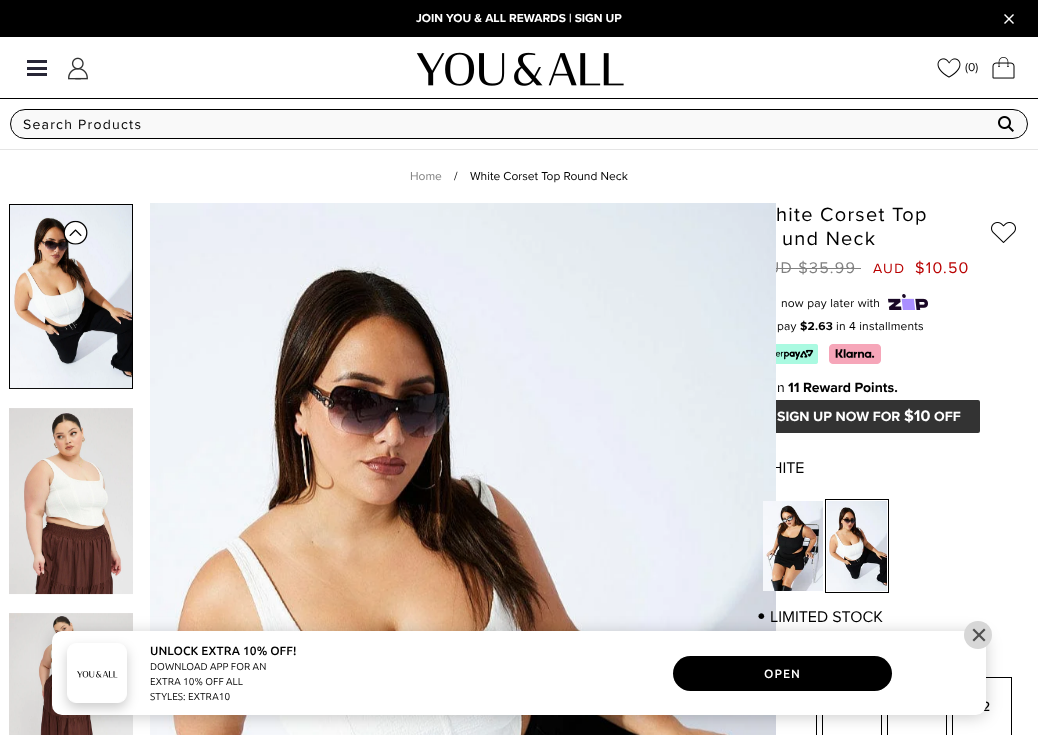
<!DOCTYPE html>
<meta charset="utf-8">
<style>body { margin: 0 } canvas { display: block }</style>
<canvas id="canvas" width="1038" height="735"></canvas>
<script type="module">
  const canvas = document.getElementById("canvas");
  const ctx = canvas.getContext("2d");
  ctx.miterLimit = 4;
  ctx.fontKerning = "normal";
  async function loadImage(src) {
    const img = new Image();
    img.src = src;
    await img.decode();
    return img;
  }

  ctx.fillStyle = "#ffffff";
  ctx.fillRect(0, 0, 1038, 735);
  ctx.fillStyle = "#000000";
  ctx.fillRect(0, 0, 1038, 37);
  ctx.font = "bold 12px Proxima Nova";
  ctx.fillStyle = "#ffffff";
  ctx.fillText("JOIN YOU & ALL REWARDS | SIGN UP", 416, 22);
  ctx.drawImage(await loadImage("img1.png"), 1004, 14, 10, 10);
  ctx.fillStyle = "#272636";
  ctx.fillRect(27, 67, 20, 3);
  ctx.fillRect(27, 60, 20, 3);
  ctx.fillRect(27, 73, 20, 3);
  ctx.drawImage(await loadImage("img2.png"), 68, 57, 20, 23);
  ctx.drawImage(await loadImage("img3.png"), 416, 52, 208, 34);
  ctx.drawImage(await loadImage("img4.png"), 937, 58, 24, 20);
  ctx.font = "12px Proxima Nova";
  ctx.fillStyle = "#000000";
  ctx.fillText("(0)", 965, 71);
  ctx.drawImage(await loadImage("img5.png"), 992, 57, 23, 22);
  ctx.fillRect(0, 98, 1038, 1);
  ctx.fillStyle = "#e5e5e5";
  ctx.fillRect(0, 149, 1038, 1);
  ctx.fillStyle = "#f9f9f9";
  ctx.beginPath();
  ctx.roundRect(10.5, 109.5, 1017, 29, 14.5);
  ctx.fill();
  ctx.strokeStyle = "#000000";
  ctx.stroke();
  ctx.letterSpacing = "1.25px";
  ctx.font = "14px Proxima Nova";
  ctx.fillStyle = "#000000";
  ctx.fillText("Search Products", 23, 129);
  ctx.drawImage(await loadImage("img6.png"), 998, 116, 16, 16);
  ctx.letterSpacing = "0px";
  ctx.font = "12px Proxima Nova";
  ctx.fillStyle = "#808080";
  ctx.fillText("Home", 410, 180);
  ctx.fillStyle = "#000000";
  ctx.fillText("/", 454, 180);
  ctx.fillText("White Corset Top Round Neck", 470, 180);
  ctx.strokeRect(9.5, 204.5, 123, 184);
  ctx.drawImage(await loadImage("img7.png"), 10, 205, 122, 184);
  ctx.drawImage(await loadImage("img8.png"), 9, 408, 124, 187);
  ctx.drawImage(await loadImage("img9.png"), 9, 613, 124, 122);
  ctx.drawImage(await loadImage("img10.png"), 64, 220, 24, 25);
  ctx.letterSpacing = "1.25px";
  ctx.font = "16px Proxima Nova";
  ctx.fillStyle = "#808080";
  ctx.fillText("UD $35.99", 768, 273);
  ctx.fillStyle = "#333333";
  ctx.beginPath();
  ctx.roundRect(757, 400, 223, 33, 2);
  ctx.fill();
  ctx.letterSpacing = "0px";
  ctx.fillStyle = "#000000";
  ctx.fillText("HITE", 771, 473);
  ctx.strokeRect(757.5, 677.5, 59, 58);
  ctx.drawImage(await loadImage("img11.png"), 150, 203, 626, 532);
  ctx.letterSpacing = "1.25px";
  ctx.font = "20px Proxima Nova";
  ctx.fillText("hite Corset Top", 776, 221);
  ctx.fillText("und Neck", 782, 245);
  ctx.drawImage(await loadImage("img12.png"), 991, 222, 25, 21);
  ctx.fillStyle = "#808080";
  ctx.fillRect(776, 268, 85, 1);
  ctx.font = "14px Proxima Nova";
  ctx.fillStyle = "#b90000";
  ctx.fillText("AUD", 873, 273);
  ctx.font = "16px Proxima Nova";
  ctx.fillText("$10.50", 915, 273);
  ctx.letterSpacing = "0.2px";
  ctx.font = "12px Proxima Nova";
  ctx.fillStyle = "#000000";
  ctx.fillText("now pay later with", 781, 307);
  ctx.drawImage(await loadImage("img13.png"), 888, 294, 40, 16);
  ctx.fillText("pay", 777, 330);
  ctx.font = "bold 12px Proxima Nova";
  ctx.fillText("$2.63", 800, 330);
  ctx.font = "12px Proxima Nova";
  ctx.fillText("in 4 installments", 836, 330);
  ctx.drawImage(await loadImage("img14.png"), 776, 344, 42, 20);
  ctx.drawImage(await loadImage("img15.png"), 829, 344, 52, 20);
  ctx.letterSpacing = "0px";
  ctx.font = "14px Proxima Nova";
  ctx.fillText("n", 777, 392);
  ctx.font = "bold 14px Proxima Nova";
  ctx.fillText("11 Reward Points.", 788, 392);
  ctx.fillStyle = "#ffffff";
  ctx.fillText("SIGN UP NOW FOR", 777, 421);
  ctx.font = "bold 16px Proxima Nova";
  ctx.fillText("$10", 904, 421);
  ctx.font = "bold 14px Proxima Nova";
  ctx.fillText("OFF", 934, 421);
  ctx.drawImage(await loadImage("img16.png"), 763, 501, 60, 90);
  ctx.strokeRect(825.5, 499.5, 63, 93);
  ctx.drawImage(await loadImage("img17.png"), 827, 501, 60, 90);
  ctx.font = "bold 24px Proxima Nova";
  ctx.fillStyle = "#000000";
  ctx.fillText("•", 757, 622);
  ctx.font = "16px Proxima Nova";
  ctx.fillText("LIMITED STOCK", 770, 622);
  ctx.strokeRect(822.5, 677.5, 59, 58);
  ctx.strokeRect(887.5, 677.5, 59, 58);
  ctx.strokeRect(952.5, 677.5, 59, 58);
  ctx.letterSpacing = "2px";
  ctx.font = "500 14px Proxima Nova";
  ctx.fillText("2", 982, 711);
  ctx.fillStyle = "rgba(0, 0, 0, 0.2)";
  ctx.filter = "blur(8px)";
  ctx.beginPath();
  ctx.roundRect(52, 633, 934, 84, 10);
  ctx.fill();
  ctx.filter = "none";
  ctx.fillStyle = "#ffffff";
  ctx.beginPath();
  ctx.roundRect(52, 631, 934, 84, 10);
  ctx.fill();
  ctx.fillStyle = "#d7d7d7";
  ctx.beginPath();
  ctx.arc(978, 635, 14, 0, Math.PI * 2);
  ctx.fill();
  ctx.fillStyle = "#4f4f4f";
  ctx.beginPath();
  ctx.moveTo(984, 628.5);
  ctx.lineTo(985.5, 630);
  ctx.lineTo(974, 641.5);
  ctx.lineTo(972.5, 640);
  ctx.closePath();
  ctx.fill();
  ctx.beginPath();
  ctx.moveTo(972.5, 630);
  ctx.lineTo(974, 628.5);
  ctx.lineTo(985.5, 640);
  ctx.lineTo(984, 641.5);
  ctx.closePath();
  ctx.fill();
  ctx.fillStyle = "rgba(0, 0, 0, 0.2)";
  ctx.filter = "blur(6px)";
  ctx.beginPath();
  ctx.roundRect(67, 648, 60, 60, 9);
  ctx.fill();
  ctx.filter = "none";
  ctx.fillStyle = "#ffffff";
  ctx.beginPath();
  ctx.roundRect(67.5, 643.5, 59, 59, 8.5);
  ctx.fill();
  ctx.strokeStyle = "#ffffff";
  ctx.stroke();
  ctx.drawImage(await loadImage("img18.png"), 77, 671, 41, 7);
  ctx.letterSpacing = "0.05px";
  ctx.font = "600 12px Ubuntu";
  ctx.fillStyle = "#000000";
  ctx.fillText("UNLOCK EXTRA 10% OFF!", 150, 655);
  ctx.font = "10px Ubuntu";
  ctx.fillText("DOWNLOAD APP FOR AN", 150, 670);
  ctx.fillText("EXTRA 10% OFF ALL", 150, 685);
  ctx.fillText("STYLES: EXTRA10", 150, 700);
  ctx.beginPath();
  ctx.roundRect(673, 656, 219, 35, 17.5);
  ctx.fill();
  ctx.letterSpacing = "1px";
  ctx.font = "600 12px Ubuntu";
  ctx.fillStyle = "#ffffff";
  ctx.fillText("OPEN", 764, 678);
</script>
